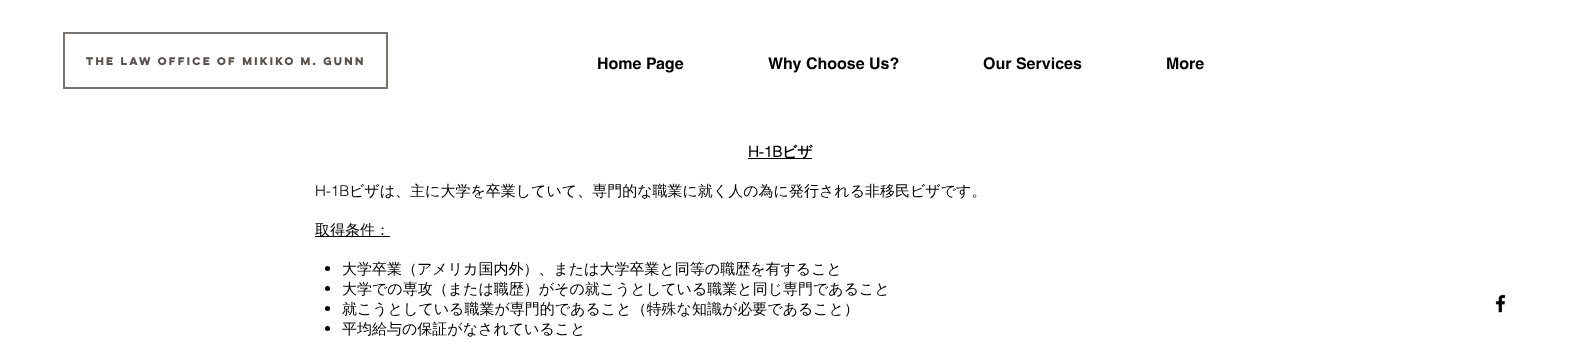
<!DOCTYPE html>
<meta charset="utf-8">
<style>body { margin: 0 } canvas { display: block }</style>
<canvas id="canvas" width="1579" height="345"></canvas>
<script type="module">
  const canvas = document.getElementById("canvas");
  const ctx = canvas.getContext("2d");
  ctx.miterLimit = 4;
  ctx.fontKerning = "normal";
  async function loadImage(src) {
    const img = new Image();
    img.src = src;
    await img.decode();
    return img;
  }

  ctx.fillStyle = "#ffffff";
  ctx.fillRect(0, 0, 1579, 345);
  ctx.strokeStyle = "#7b736f";
  ctx.lineWidth = 2;
  ctx.strokeRect(64, 33, 323, 55);
  ctx.font = "bold 10px 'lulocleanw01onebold'";
  ctx.fillStyle = "#59514d";
  ctx.fillText("The Law Office of Mikiko M. Gunn", 86, 65);
  ctx.font = "bold 16px helvetica";
  ctx.fillStyle = "#000000";
  ctx.fillText("Home Page", 597, 69);
  ctx.fillText("Why Choose Us?", 768, 69);
  ctx.fillText("Our Services", 983, 69);
  ctx.fillText("More", 1166, 69);
  ctx.font = "bold 15px 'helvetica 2'";
  ctx.fillText("H-1B", 748, 157);
  ctx.fillRect(748, 158, 64, 1);
  ctx.font = "bold 15px WenQuanYi Zen Hei";
  ctx.fillText("ビザ", 782, 157);
  ctx.font = "300 15px helvetica";
  ctx.fillText("H-1B", 315, 196);
  ctx.font = "500 15px WenQuanYi Zen Hei";
  ctx.fillText("ビザは、主に大学を卒業していて、専門的な職業に就く人の為に発行される非移民ビザです。", 349, 196);
  ctx.fillRect(315, 236, 75, 1);
  ctx.fillText("取得条件：", 315, 235);
  ctx.beginPath();
  ctx.arc(327.5, 268.5, 2.5, 0, Math.PI * 2);
  ctx.fill();
  ctx.fillText("大学卒業（アメリカ国内外）、または大学卒業と同等の職歴を有すること", 342, 274);
  ctx.beginPath();
  ctx.arc(327.5, 288.5, 2.5, 0, Math.PI * 2);
  ctx.fill();
  ctx.fillText("大学での専攻（または職歴）がその就こうとしている職業と同じ専門であること", 342, 294);
  ctx.beginPath();
  ctx.arc(327.5, 308.5, 2.5, 0, Math.PI * 2);
  ctx.fill();
  ctx.fillText("就こうとしている職業が専門的であること（特殊な知識が必要であること）", 342, 314);
  ctx.beginPath();
  ctx.arc(327.5, 328.5, 2.5, 0, Math.PI * 2);
  ctx.fill();
  ctx.fillText("平均給与の保証がなされていること", 342, 334);
  ctx.drawImage(await loadImage("img1.png"), 1495, 294, 11, 19);
</script>
